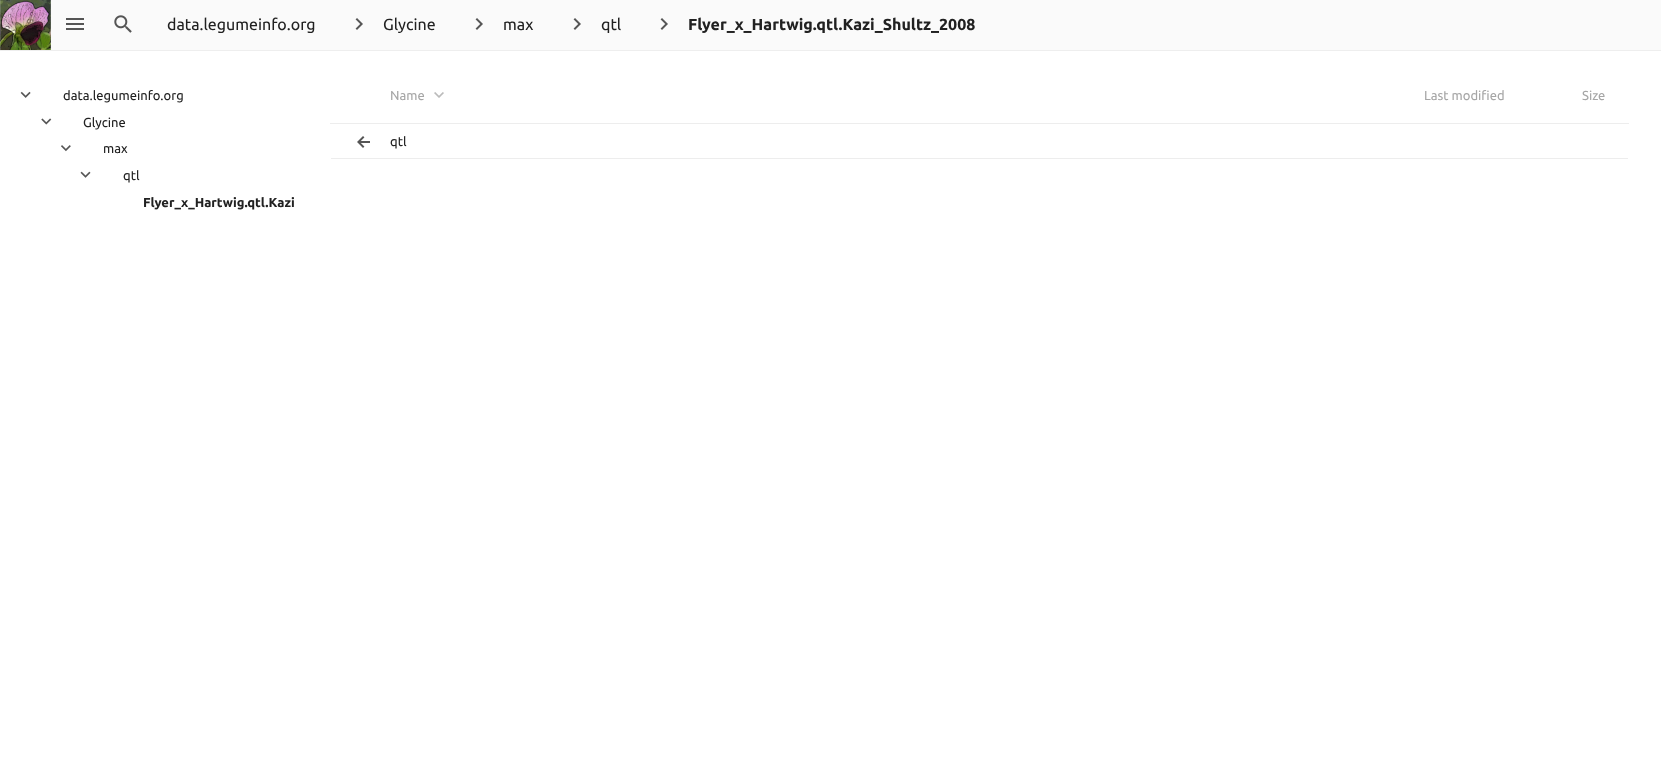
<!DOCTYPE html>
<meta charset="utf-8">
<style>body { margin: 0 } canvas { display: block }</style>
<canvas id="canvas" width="1661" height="772"></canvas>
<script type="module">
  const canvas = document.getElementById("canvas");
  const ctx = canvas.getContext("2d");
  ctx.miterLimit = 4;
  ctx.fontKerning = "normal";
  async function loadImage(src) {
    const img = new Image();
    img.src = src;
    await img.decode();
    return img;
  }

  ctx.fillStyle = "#ffffff";
  ctx.fillRect(0, 0, 1661, 772);
  ctx.fillStyle = "#fafafa";
  ctx.fillRect(51, 0, 1610, 50);
  ctx.fillStyle = "#eeeeee";
  ctx.fillRect(0, 50, 1661, 1);
  ctx.drawImage(await loadImage("img1.png"), 0, 0, 51, 50);
  ctx.drawImage(await loadImage("img2.png"), 66, 18, 18, 12);
  ctx.drawImage(await loadImage("img3.png"), 114, 15, 18, 18);
  ctx.font = "16px Ubuntu";
  ctx.fillStyle = "#212121";
  ctx.fillText("data.legumeinfo.org", 167, 30);
  ctx.drawImage(await loadImage("img4.png"), 355, 18, 8, 12);
  ctx.fillText("Glycine", 383, 30);
  ctx.drawImage(await loadImage("img4.png"), 475, 18, 8, 12);
  ctx.fillText("max", 503, 30);
  ctx.drawImage(await loadImage("img4.png"), 573, 18, 8, 12);
  ctx.fillText("qtl", 601, 30);
  ctx.drawImage(await loadImage("img4.png"), 660, 18, 8, 12);
  ctx.font = "bold 16px Ubuntu";
  ctx.fillText("Flyer_x_Hartwig.qtl.Kazi_Shultz_2008", 688, 30);
  ctx.drawImage(await loadImage("img5.png"), 20, 91, 11, 7);
  ctx.font = "13px Ubuntu";
  ctx.fillText("data.legumeinfo.org", 63, 100);
  ctx.drawImage(await loadImage("img6.png"), 41, 118, 11, 7);
  ctx.fillText("Glycine", 83, 127);
  ctx.drawImage(await loadImage("img7.png"), 61, 145, 10, 7);
  ctx.fillText("max", 103, 153);
  ctx.drawImage(await loadImage("img8.png"), 80, 171, 11, 7);
  ctx.fillText("qtl", 123, 180);
  ctx.font = "bold 13px Ubuntu";
  ctx.fillText("Flyer_x_Hartwig.qtl.Kazi", 143, 207);
  ctx.fillStyle = "#ededed";
  ctx.fillRect(330, 123, 1299, 1);
  ctx.font = "13px Ubuntu";
  ctx.fillStyle = "#a6a6a6";
  ctx.fillText("Name", 390, 100);
  ctx.drawImage(await loadImage("img9.png"), 434, 92, 10, 6);
  ctx.fillText("Last modified", 1424, 100);
  ctx.fillText("Size", 1582, 100);
  ctx.fillStyle = "#ededed";
  ctx.fillRect(331, 158, 1297, 1);
  ctx.drawImage(await loadImage("img10.png"), 357, 136, 13, 12);
  ctx.fillStyle = "#212121";
  ctx.fillText("qtl", 390, 146);
</script>
